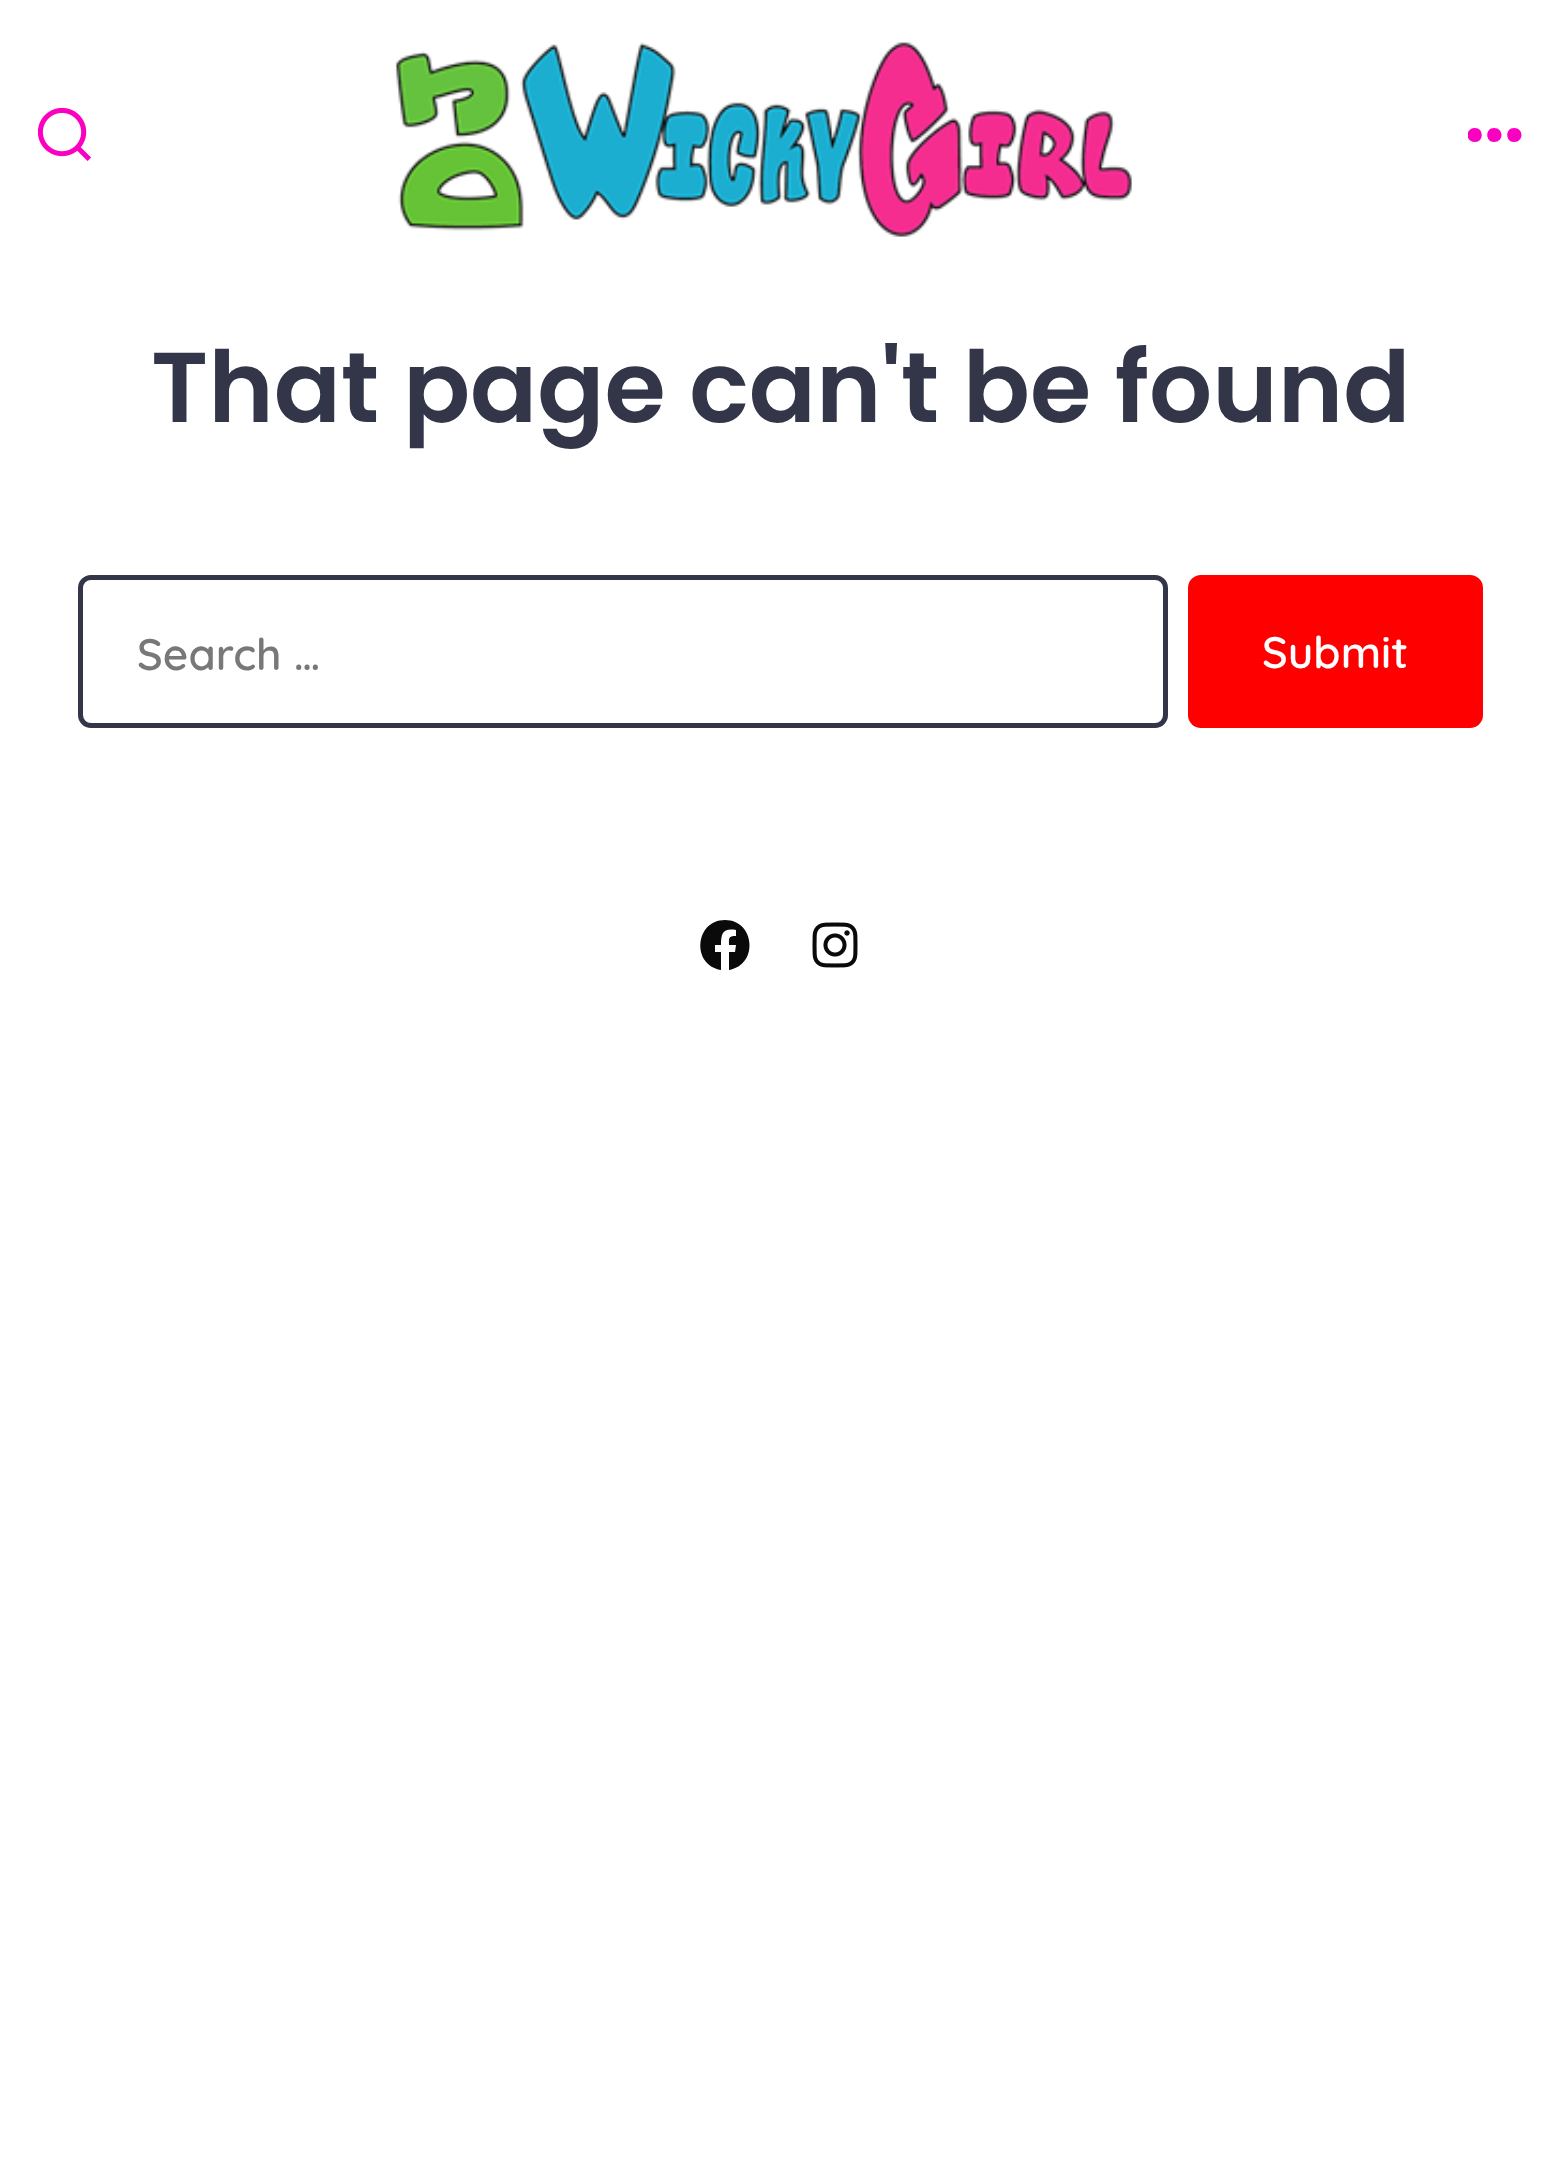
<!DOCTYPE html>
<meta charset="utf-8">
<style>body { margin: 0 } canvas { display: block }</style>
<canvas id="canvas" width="1558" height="2164"></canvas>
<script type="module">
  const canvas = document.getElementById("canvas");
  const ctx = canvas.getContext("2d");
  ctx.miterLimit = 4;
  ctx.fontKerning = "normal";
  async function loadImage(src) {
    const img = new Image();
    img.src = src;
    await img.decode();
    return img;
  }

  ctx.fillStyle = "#ffffff";
  ctx.fillRect(0, 0, 1558, 2164);
  ctx.drawImage(await loadImage("img1.png"), 38, 108, 53, 53);
  ctx.drawImage(await loadImage("img2.png"), 395, 42, 737, 195);
  ctx.save();
  ctx.beginPath();
  ctx.rect(1468, 108, 55, 55);
  ctx.clip();
  ctx.fillStyle = "#fa00c0";
  ctx.beginPath();
  ctx.moveTo(1475, 142);
  ctx.bezierCurveTo(1465, 142, 1465, 128, 1475, 128);
  ctx.bezierCurveTo(1484, 128, 1484, 142, 1475, 142);
  ctx.closePath();
  ctx.moveTo(1494, 142);
  ctx.bezierCurveTo(1485, 142, 1485, 128, 1494, 128);
  ctx.bezierCurveTo(1504, 128, 1504, 142, 1494, 142);
  ctx.closePath();
  ctx.moveTo(1514, 142);
  ctx.bezierCurveTo(1505, 142, 1505, 128, 1514, 128);
  ctx.bezierCurveTo(1524, 128, 1524, 142, 1514, 142);
  ctx.closePath();
  ctx.fill();
  ctx.restore();
  ctx.font = "600 99.1px Poppins";
  ctx.fillStyle = "#323648";
  ctx.fillText("That page can't be found", 151, 422);
  ctx.beginPath();
  ctx.roundRect(80.5, 577.5, 1085, 148, 10.5);
  ctx.strokeStyle = "#323648";
  ctx.lineWidth = 5;
  ctx.stroke();
  ctx.font = "600 44px Quicksand";
  ctx.fillStyle = "#787878";
  ctx.fillText("Search …", 137, 670);
  ctx.fillStyle = "#ff0000";
  ctx.beginPath();
  ctx.roundRect(1188, 575, 295, 153, 13);
  ctx.fill();
  ctx.fillStyle = "#ffffff";
  ctx.fillText("Submit", 1262, 668);
  ctx.fillStyle = "#0a0a0a";
  ctx.beginPath();
  ctx.moveTo(725, 920);
  ctx.bezierCurveTo(695, 920, 691, 965, 721, 970);
  ctx.lineTo(721, 952);
  ctx.lineTo(715, 952);
  ctx.lineTo(715, 945);
  ctx.lineTo(721, 945);
  ctx.bezierCurveTo(721, 933, 723, 928, 736, 930);
  ctx.lineTo(736, 936);
  ctx.bezierCurveTo(728, 936, 729, 938, 729, 945);
  ctx.lineTo(736, 945);
  ctx.lineTo(735, 952);
  ctx.lineTo(729, 952);
  ctx.lineTo(729, 970);
  ctx.bezierCurveTo(759, 965, 755, 920, 725, 920);
  ctx.closePath();
  ctx.fill();
  ctx.drawImage(await loadImage("img3.png"), 812, 922, 46, 46);
</script>
